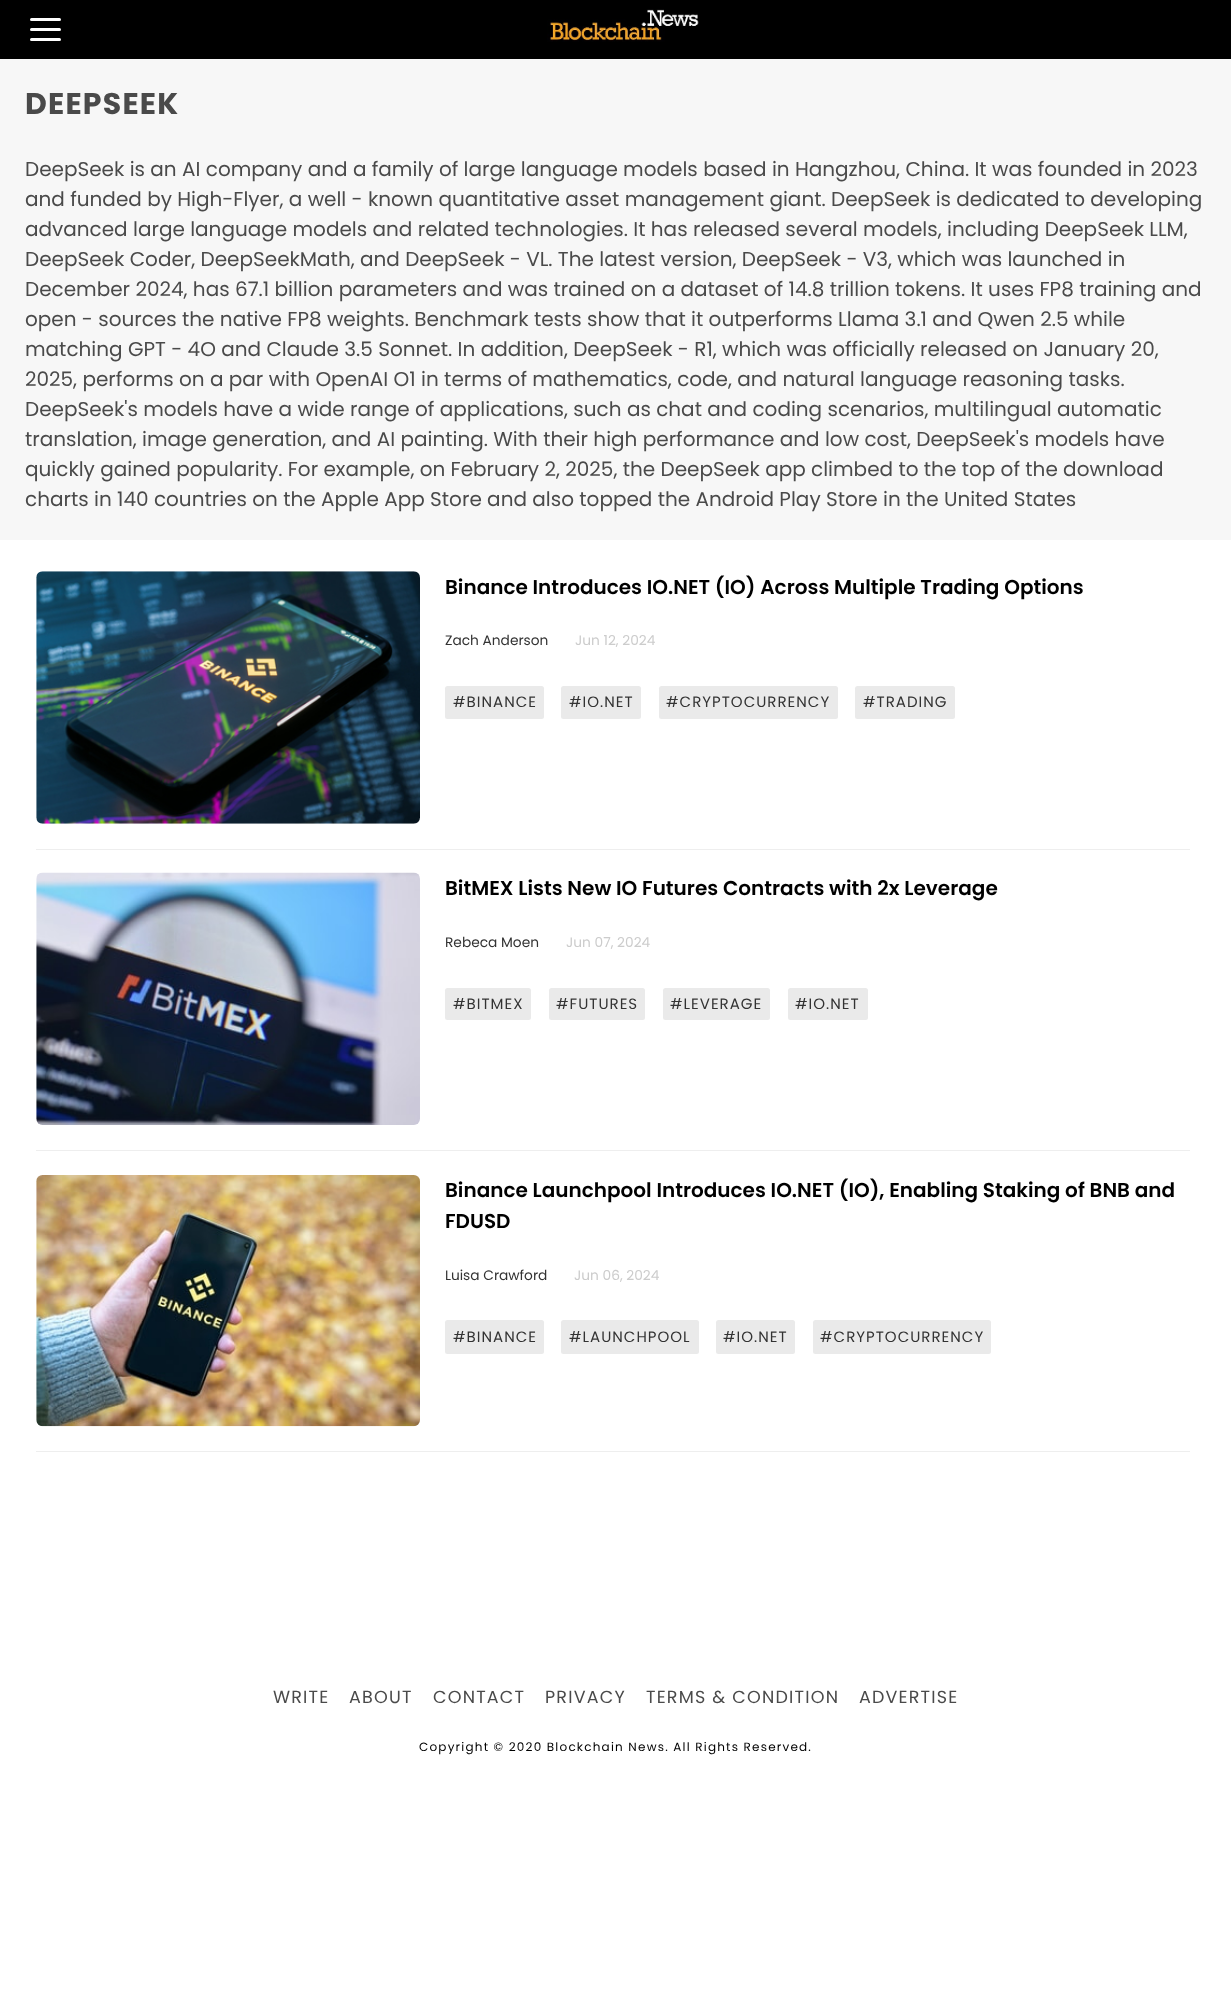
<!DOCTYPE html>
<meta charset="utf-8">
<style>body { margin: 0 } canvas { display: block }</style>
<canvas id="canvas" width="1231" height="2012"></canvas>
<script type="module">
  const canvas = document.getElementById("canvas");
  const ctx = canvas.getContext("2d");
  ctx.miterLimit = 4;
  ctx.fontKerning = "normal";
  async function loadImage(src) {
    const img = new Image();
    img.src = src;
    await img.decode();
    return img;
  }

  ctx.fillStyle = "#ffffff";
  ctx.fillRect(0, 0, 1231, 2012);
  ctx.fillStyle = "#000000";
  ctx.fillRect(0, 0, 1231, 59);
  ctx.fillStyle = "#ffffff";
  ctx.beginPath();
  ctx.roundRect(30, 18, 31, 3, 1.5);
  ctx.fill();
  ctx.beginPath();
  ctx.roundRect(30, 28, 31, 3, 1.5);
  ctx.fill();
  ctx.beginPath();
  ctx.roundRect(30, 38, 31, 3, 1.5);
  ctx.fill();
  ctx.drawImage(await loadImage("img1.png"), 547, 9, 152, 33);
  ctx.fillStyle = "#f7f7f7";
  ctx.fillRect(0, 59, 1231, 481);
  ctx.letterSpacing = "1.2px";
  ctx.font = "bold 30px Poppins";
  ctx.fillStyle = "#4a4a4a";
  ctx.fillText("DEEPSEEK", 25, 114);
  ctx.letterSpacing = "0px";
  ctx.font = "20px Poppins";
  ctx.fillText("DeepSeek is an AI company and a family of large language models based in Hangzhou, China. It was founded in 2023", 25, 176);
  ctx.fillText("and funded by High-Flyer, a well - known quantitative asset management giant. DeepSeek is dedicated to developing", 25, 206);
  ctx.fillText("advanced large language models and related technologies. It has released several models, including DeepSeek LLM,", 25, 236);
  ctx.fillText("DeepSeek Coder, DeepSeekMath, and DeepSeek - VL. The latest version, DeepSeek - V3, which was launched in", 25, 266);
  ctx.fillText("December 2024, has 67.1 billion parameters and was trained on a dataset of 14.8 trillion tokens. It uses FP8 training and", 25, 296);
  ctx.fillText("open - sources the native FP8 weights. Benchmark tests show that it outperforms Llama 3.1 and Qwen 2.5 while", 25, 326);
  ctx.fillText("matching GPT - 4O and Claude 3.5 Sonnet. In addition, DeepSeek - R1, which was officially released on January 20,", 25, 356);
  ctx.fillText("2025, performs on a par with OpenAI O1 in terms of mathematics, code, and natural language reasoning tasks.", 25, 386);
  ctx.fillText("DeepSeek's models have a wide range of applications, such as chat and coding scenarios, multilingual automatic", 25, 416);
  ctx.fillText("translation, image generation, and AI painting. With their high performance and low cost, DeepSeek's models have", 25, 446);
  ctx.fillText("quickly gained popularity. For example, on February 2, 2025, the DeepSeek app climbed to the top of the download", 25, 476);
  ctx.fillText("charts in 140 countries on the Apple App Store and also topped the Android Play Store in the United States", 25, 506);
  ctx.fillStyle = "#eeeeee";
  ctx.fillRect(36, 849, 1154, 1);
  ctx.drawImage(await loadImage("img2.png"), 36, 571, 384, 253);
  ctx.font = "600 20px Poppins";
  ctx.fillStyle = "#000000";
  ctx.fillText("Binance Introduces IO.NET (IO) Across Multiple Trading Options", 445, 594);
  ctx.font = "13.75px Poppins";
  ctx.fillStyle = "#333333";
  ctx.fillText("Zach Anderson", 445, 645);
  ctx.fillStyle = "#cccccc";
  ctx.fillText("Jun 12, 2024", 575, 645);
  ctx.fillStyle = "#eaeaea";
  ctx.beginPath();
  ctx.roundRect(445, 686, 99, 33, 2.5);
  ctx.fill();
  ctx.letterSpacing = "1px";
  ctx.font = "15px Poppins";
  ctx.fillStyle = "#333333";
  ctx.fillText("#BINANCE", 453, 707);
  ctx.fillStyle = "#eaeaea";
  ctx.beginPath();
  ctx.roundRect(561, 686, 80, 33, 2.5);
  ctx.fill();
  ctx.fillStyle = "#333333";
  ctx.fillText("#IO.NET", 569, 707);
  ctx.fillStyle = "#eaeaea";
  ctx.beginPath();
  ctx.roundRect(659, 686, 179, 33, 2.5);
  ctx.fill();
  ctx.fillStyle = "#333333";
  ctx.fillText("#CRYPTOCURRENCY", 666, 707);
  ctx.fillStyle = "#eaeaea";
  ctx.beginPath();
  ctx.roundRect(855, 686, 100, 33, 2.5);
  ctx.fill();
  ctx.fillStyle = "#333333";
  ctx.fillText("#TRADING", 863, 707);
  ctx.fillStyle = "#eeeeee";
  ctx.fillRect(36, 1150, 1154, 1);
  ctx.drawImage(await loadImage("img3.png"), 36, 872, 384, 253);
  ctx.letterSpacing = "0px";
  ctx.font = "600 20px Poppins";
  ctx.fillStyle = "#000000";
  ctx.fillText("BitMEX Lists New IO Futures Contracts with 2x Leverage", 445, 895);
  ctx.font = "13.75px Poppins";
  ctx.fillStyle = "#333333";
  ctx.fillText("Rebeca Moen", 445, 947);
  ctx.fillStyle = "#cccccc";
  ctx.fillText("Jun 07, 2024", 566, 947);
  ctx.fillStyle = "#eaeaea";
  ctx.beginPath();
  ctx.roundRect(445, 988, 86, 32, 2.5);
  ctx.fill();
  ctx.letterSpacing = "1px";
  ctx.font = "15px Poppins";
  ctx.fillStyle = "#333333";
  ctx.fillText("#BITMEX", 453, 1009);
  ctx.fillStyle = "#eaeaea";
  ctx.beginPath();
  ctx.roundRect(549, 988, 96, 32, 2.5);
  ctx.fill();
  ctx.fillStyle = "#333333";
  ctx.fillText("#FUTURES", 556, 1009);
  ctx.fillStyle = "#eaeaea";
  ctx.beginPath();
  ctx.roundRect(663, 988, 107, 32, 2.5);
  ctx.fill();
  ctx.fillStyle = "#333333";
  ctx.fillText("#LEVERAGE", 670, 1009);
  ctx.fillStyle = "#eaeaea";
  ctx.beginPath();
  ctx.roundRect(788, 988, 80, 32, 2.5);
  ctx.fill();
  ctx.fillStyle = "#333333";
  ctx.fillText("#IO.NET", 795, 1009);
  ctx.fillStyle = "#eeeeee";
  ctx.fillRect(36, 1451, 1154, 1);
  ctx.drawImage(await loadImage("img4.png"), 36, 1175, 384, 252);
  ctx.letterSpacing = "0px";
  ctx.font = "600 20px Poppins";
  ctx.fillStyle = "#000000";
  ctx.fillText("Binance Launchpool Introduces IO.NET (IO), Enabling Staking of BNB and", 445, 1197);
  ctx.fillText("FDUSD", 445, 1228);
  ctx.font = "13.75px Poppins";
  ctx.fillStyle = "#333333";
  ctx.fillText("Luisa Crawford", 445, 1280);
  ctx.fillStyle = "#cccccc";
  ctx.fillText("Jun 06, 2024", 574, 1280);
  ctx.fillStyle = "#eaeaea";
  ctx.beginPath();
  ctx.roundRect(445, 1320, 99, 34, 2.5);
  ctx.fill();
  ctx.letterSpacing = "1px";
  ctx.font = "15px Poppins";
  ctx.fillStyle = "#333333";
  ctx.fillText("#BINANCE", 453, 1342);
  ctx.fillStyle = "#eaeaea";
  ctx.beginPath();
  ctx.roundRect(561, 1320, 138, 34, 2.5);
  ctx.fill();
  ctx.fillStyle = "#333333";
  ctx.fillText("#LAUNCHPOOL", 569, 1342);
  ctx.fillStyle = "#eaeaea";
  ctx.beginPath();
  ctx.roundRect(716, 1320, 79, 34, 2.5);
  ctx.fill();
  ctx.fillStyle = "#333333";
  ctx.fillText("#IO.NET", 723, 1342);
  ctx.fillStyle = "#eaeaea";
  ctx.beginPath();
  ctx.roundRect(813, 1320, 178, 34, 2.5);
  ctx.fill();
  ctx.fillStyle = "#333333";
  ctx.fillText("#CRYPTOCURRENCY", 820, 1342);
  ctx.letterSpacing = "1.2px";
  ctx.font = "17.5px Poppins";
  ctx.fillStyle = "#4a4a4a";
  ctx.fillText("WRITE", 273, 1703);
  ctx.fillText("ABOUT", 349, 1703);
  ctx.fillText("CONTACT", 433, 1703);
  ctx.fillText("PRIVACY", 545, 1703);
  ctx.fillText("TERMS & CONDITION", 646, 1703);
  ctx.fillText("ADVERTISE", 859, 1703);
  ctx.font = "12px Poppins";
  ctx.fillStyle = "#000000";
  ctx.fillText("Copyright © 2020 Blockchain News. All Rights Reserved.", 419, 1751);
</script>
